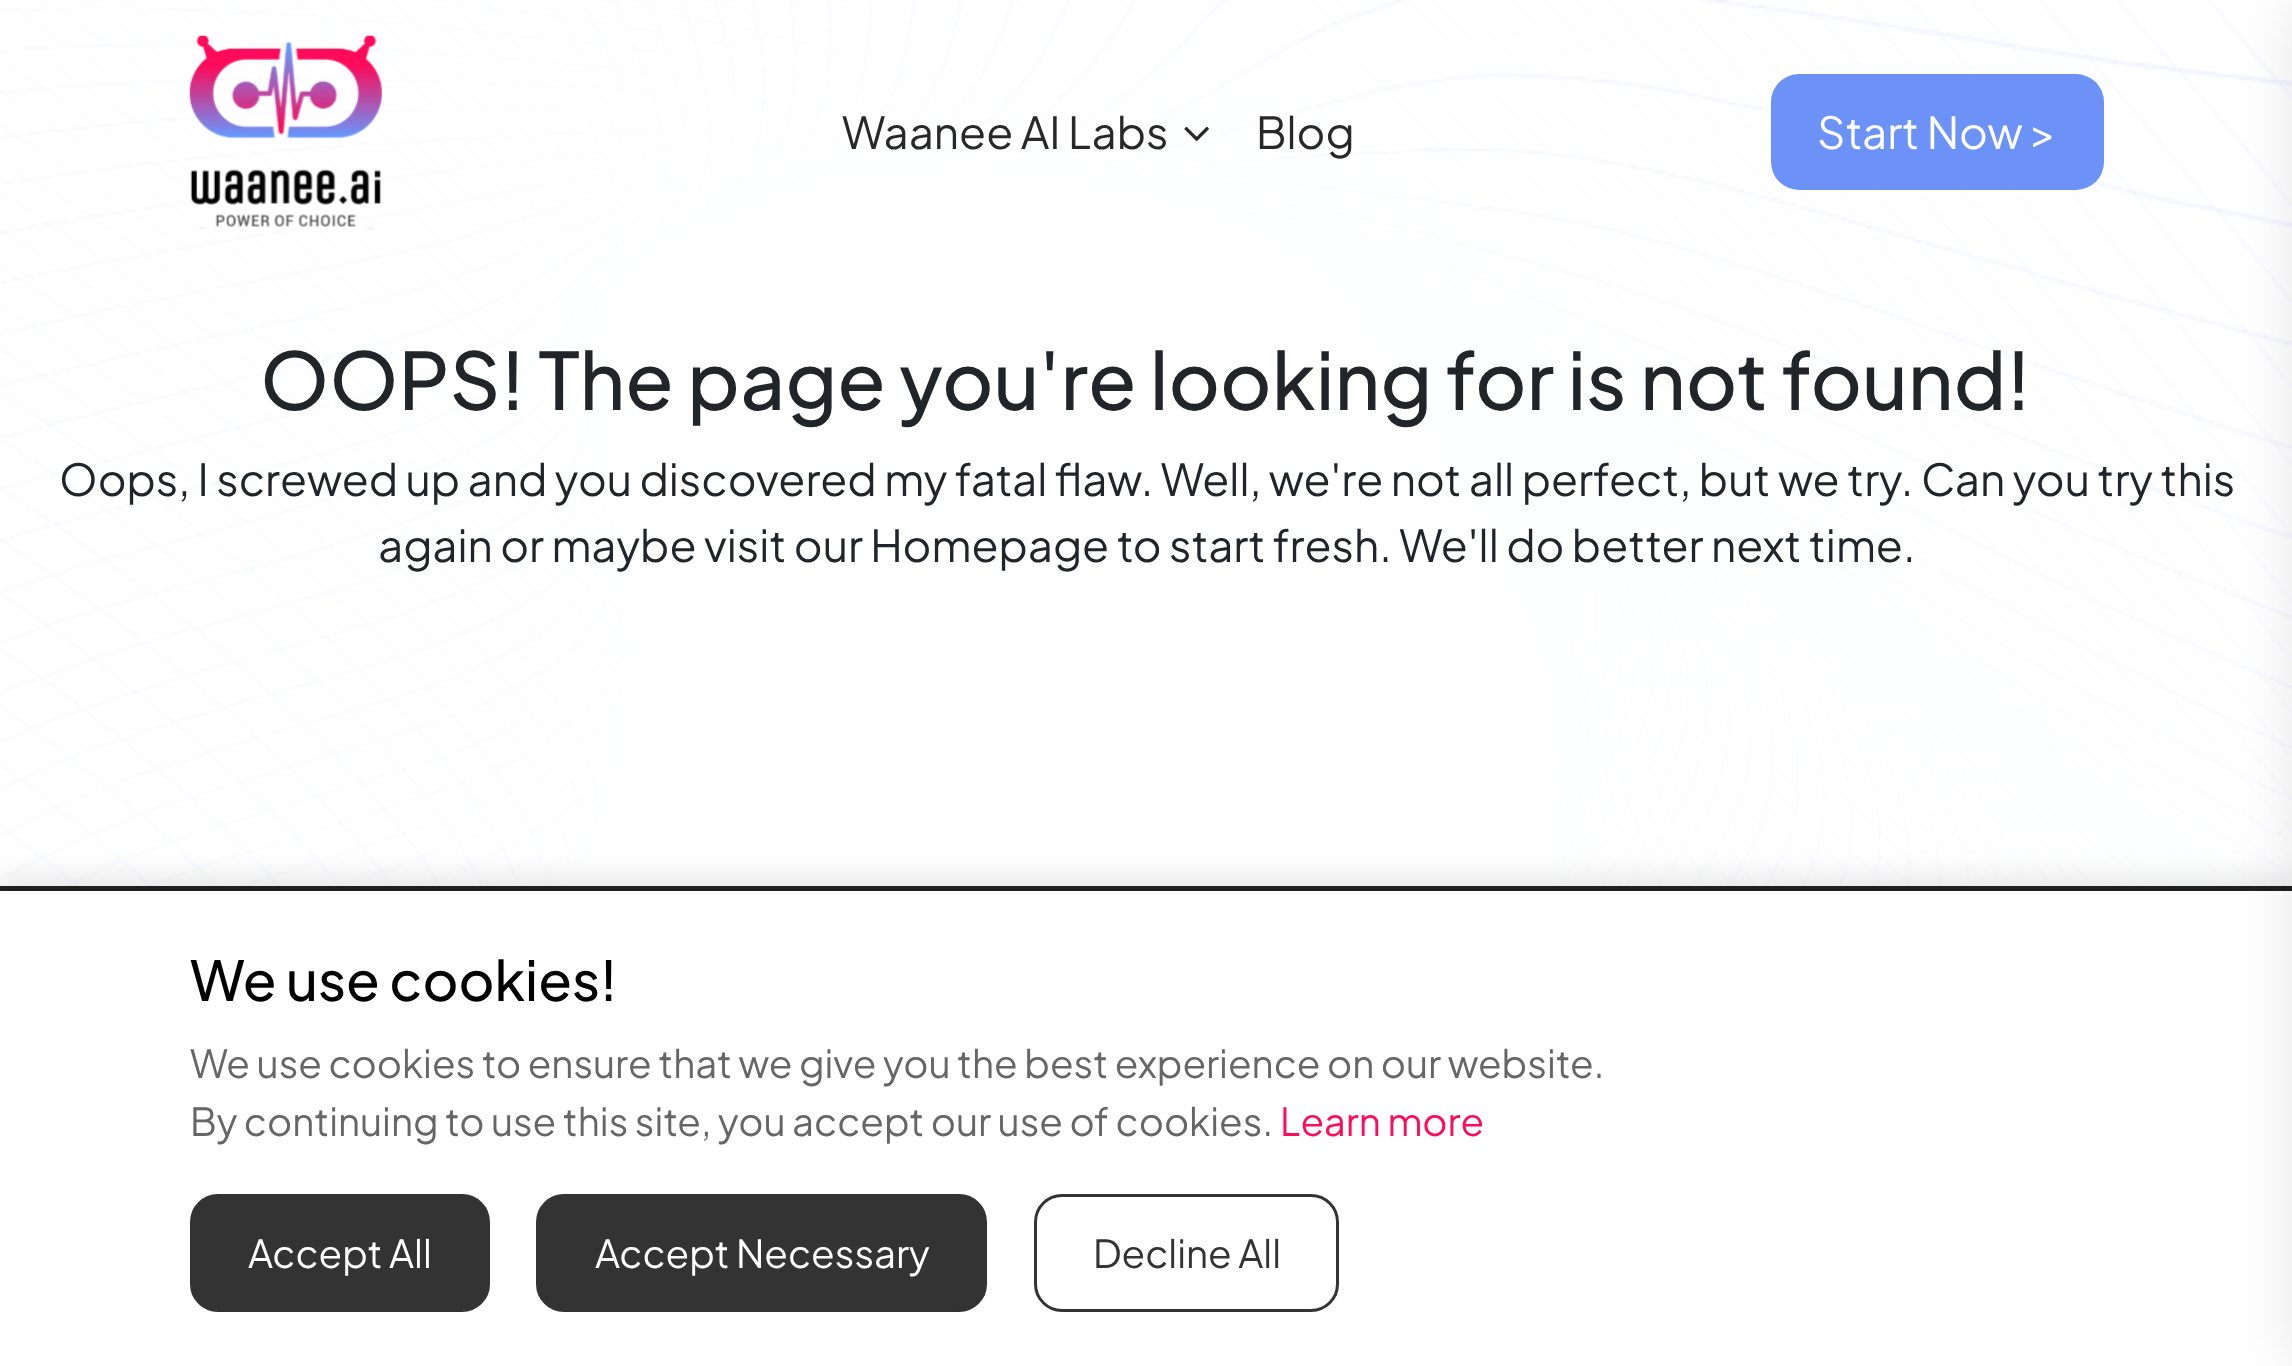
<!DOCTYPE html>
<meta charset="utf-8">
<style>body { margin: 0 } canvas { display: block }</style>
<canvas id="canvas" width="2292" height="1366"></canvas>
<script type="module">
  const canvas = document.getElementById("canvas");
  const ctx = canvas.getContext("2d");
  ctx.miterLimit = 4;
  ctx.fontKerning = "normal";
  async function loadImage(src) {
    const img = new Image();
    img.src = src;
    await img.decode();
    return img;
  }

  ctx.fillStyle = "#ffffff";
  ctx.fillRect(0, 0, 2292, 1366);
  ctx.drawImage(await loadImage("img1.png"), 0, 0, 2292, 886);
  ctx.drawImage(await loadImage("img2.png"), 189, 35, 194, 194);
  ctx.font = "44px Plus Jakarta Sans";
  ctx.fillStyle = "#282828";
  ctx.fillText("Waanee AI Labs", 842, 149);
  ctx.drawImage(await loadImage("img3.png"), 1184, 126, 25, 16);
  ctx.fillText("Blog", 1256, 149);
  ctx.fillStyle = "#6c92f7";
  ctx.beginPath();
  ctx.roundRect(1771, 74, 333, 116, 28);
  ctx.fill();
  ctx.fillStyle = "#ffffff";
  ctx.fillText("Start Now >", 1817, 149);
  ctx.wordSpacing = "-0.25px";
  ctx.font = "500 78.9px Plus Jakarta Sans";
  ctx.fillStyle = "#212529";
  ctx.fillText("OOPS! The page you're looking for is not found!", 260, 410);
  ctx.wordSpacing = "0px";
  ctx.font = "44px Plus Jakarta Sans";
  ctx.fillText("Oops, I screwed up and you discovered my fatal flaw. Well, we're not all perfect, but we try. Can you try this", 59, 496);
  ctx.fillText("again or maybe visit our Homepage to start fresh. We'll do better next time.", 378, 562);
  ctx.fillStyle = "#222222";
  ctx.fillRect(0, 886, 2292, 5);
  ctx.fillStyle = "rgba(0, 0, 0, 0.1)";
  ctx.filter = "blur(14px)";
  ctx.beginPath();
  ctx.rect(0, 877, 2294, 476);
  ctx.fill();
  ctx.filter = "none";
  ctx.fillStyle = "#ffffff";
  ctx.fillRect(0, 891, 2292, 475);
  ctx.font = "500 55px Plus Jakarta Sans";
  ctx.fillStyle = "#000000";
  ctx.fillText("We use cookies!", 190, 1001);
  ctx.font = "38.5px Plus Jakarta Sans";
  ctx.fillStyle = "#666666";
  ctx.fillText("We use cookies to ensure that we give you the best experience on our website.", 190, 1078);
  ctx.fillText("By continuing to use this site, you accept our use of cookies.", 190, 1136);
  ctx.fillStyle = "#fd0c5c";
  ctx.fillText("Learn more", 1280, 1136);
  ctx.fillStyle = "#333333";
  ctx.beginPath();
  ctx.roundRect(191.5, 1195.5, 297, 115, 26.5);
  ctx.fill();
  ctx.strokeStyle = "#333333";
  ctx.lineWidth = 3;
  ctx.stroke();
  ctx.fillStyle = "#ffffff";
  ctx.fillText("Accept All", 248, 1268);
  ctx.fillStyle = "#333333";
  ctx.beginPath();
  ctx.roundRect(537.5, 1195.5, 448, 115, 26.5);
  ctx.fill();
  ctx.stroke();
  ctx.fillStyle = "#ffffff";
  ctx.fillText("Accept Necessary", 595, 1268);
  ctx.beginPath();
  ctx.roundRect(1035.5, 1195.5, 302, 115, 26.5);
  ctx.stroke();
  ctx.fillStyle = "#333333";
  ctx.fillText("Decline All", 1093, 1268);
  ctx.fillStyle = "rgba(0, 0, 0, 0.1)";
  ctx.filter = "blur(27.5px)";
  ctx.beginPath();
  ctx.rect(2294, 0, 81, 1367);
  ctx.fill();
  ctx.filter = "none";
</script>
